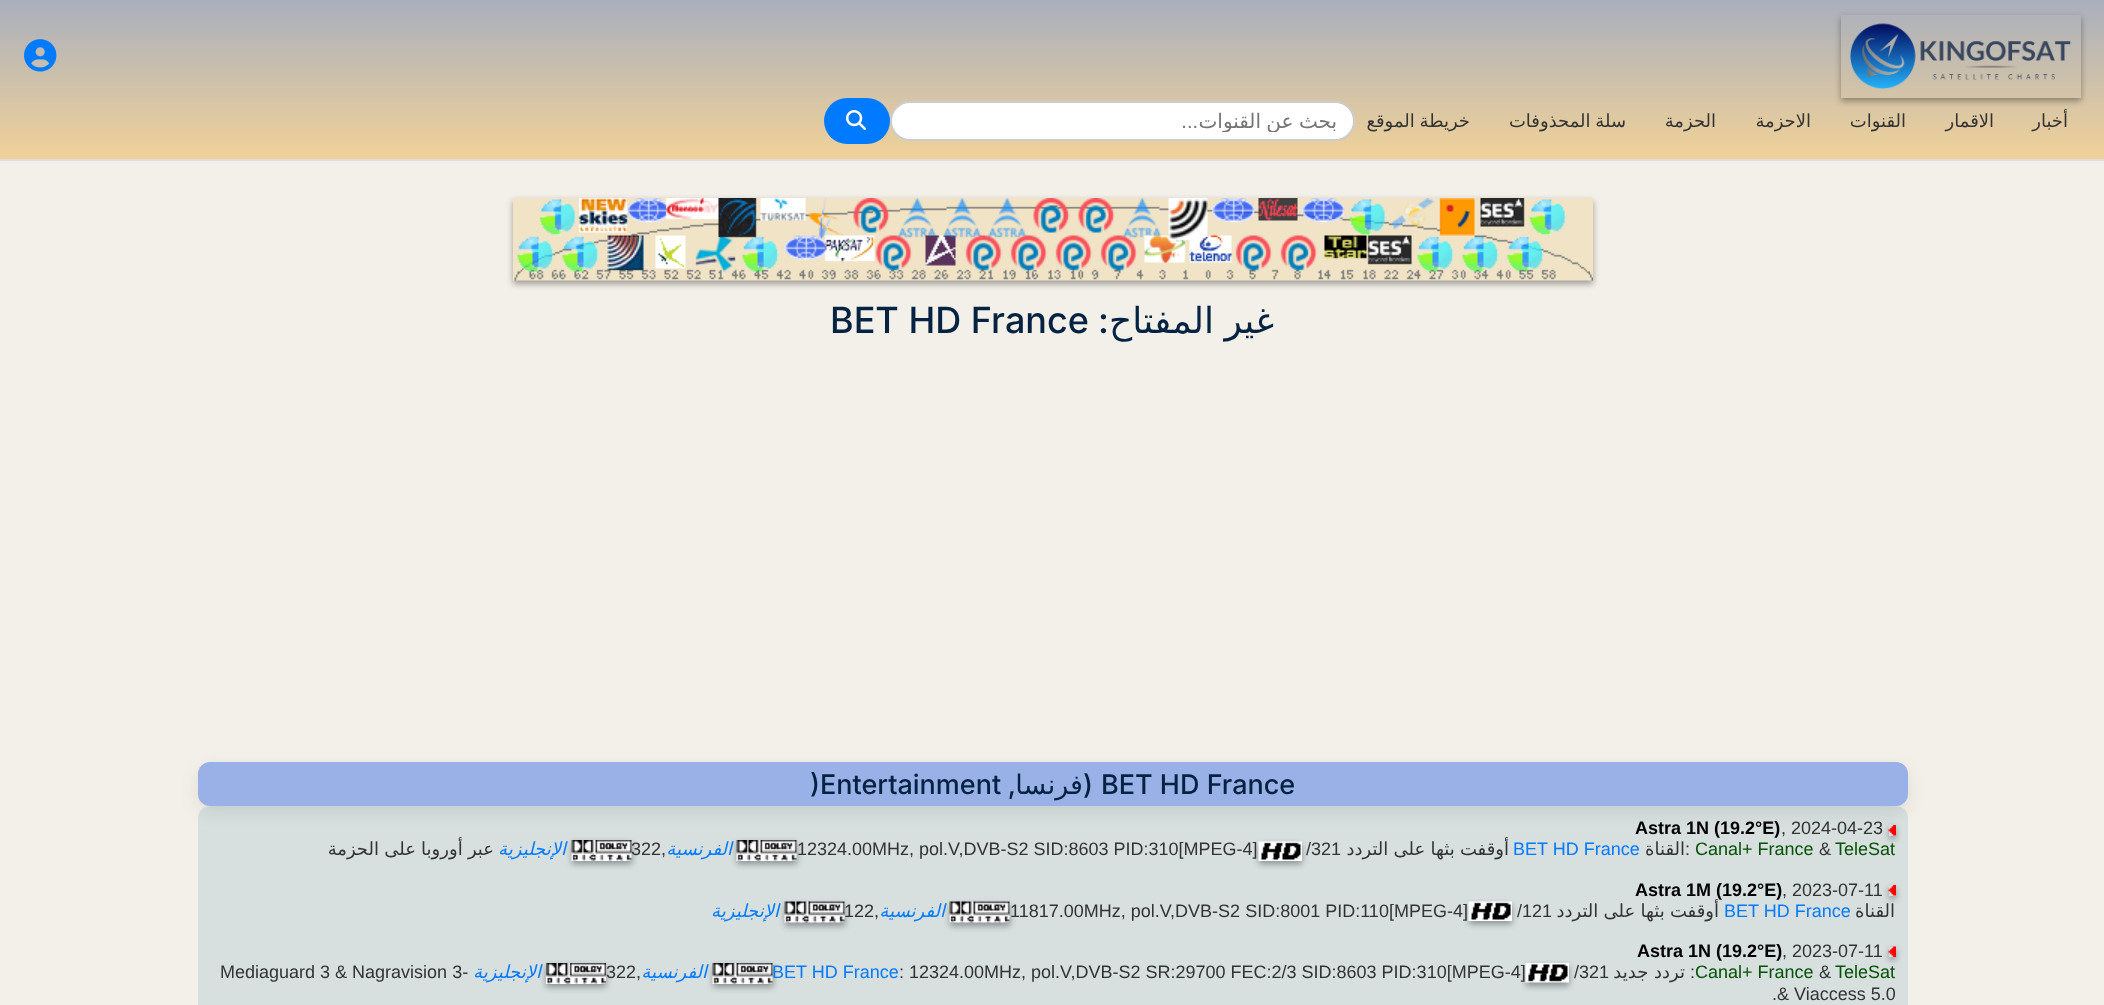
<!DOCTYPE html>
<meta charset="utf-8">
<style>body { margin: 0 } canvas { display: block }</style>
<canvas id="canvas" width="2104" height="1005"></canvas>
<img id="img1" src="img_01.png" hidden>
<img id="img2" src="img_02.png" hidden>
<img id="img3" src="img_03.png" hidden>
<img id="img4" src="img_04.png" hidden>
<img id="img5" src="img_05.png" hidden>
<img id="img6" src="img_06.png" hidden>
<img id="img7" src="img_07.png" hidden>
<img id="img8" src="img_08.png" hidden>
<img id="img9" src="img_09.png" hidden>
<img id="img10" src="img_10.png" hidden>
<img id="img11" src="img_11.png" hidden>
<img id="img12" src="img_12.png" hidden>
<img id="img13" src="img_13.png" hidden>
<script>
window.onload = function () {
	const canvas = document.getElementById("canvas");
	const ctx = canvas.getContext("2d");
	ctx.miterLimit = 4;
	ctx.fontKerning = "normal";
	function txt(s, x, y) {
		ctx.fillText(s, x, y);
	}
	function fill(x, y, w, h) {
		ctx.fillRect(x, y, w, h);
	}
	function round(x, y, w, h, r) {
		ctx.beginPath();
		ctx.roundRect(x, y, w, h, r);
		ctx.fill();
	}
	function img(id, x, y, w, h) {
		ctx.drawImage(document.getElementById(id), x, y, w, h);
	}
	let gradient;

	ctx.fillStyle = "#FFFFFF";
	fill(0, 0, 2104, 1005);
	gradient = ctx.createLinearGradient(1052, 0, 1052, 159);
	gradient.addColorStop(0, "#A9AFBD");
	gradient.addColorStop(1, "#F1D299");
	ctx.fillStyle = gradient;
	fill(0, 0, 2104, 159);
	ctx.fillStyle = "#DDDDDD";
	fill(0, 159, 2104, 2);
	img("img1", 24, 39, 33, 33);
	ctx.save();
	ctx.beginPath();
	ctx.moveTo(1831, 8);
	ctx.lineTo(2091, 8);
	ctx.lineTo(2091, 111);
	ctx.lineTo(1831, 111);
	ctx.closePath();
	ctx.moveTo(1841, 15);
	ctx.lineTo(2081, 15);
	ctx.lineTo(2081, 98);
	ctx.lineTo(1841, 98);
	ctx.closePath();
	ctx.clip("evenodd");
	ctx.fillStyle = "rgba(0, 0, 0, 0.35)";
	ctx.filter = "blur(3px)";
	ctx.beginPath();
	ctx.rect(1841, 18, 240, 83);
	ctx.fill();
	ctx.filter = "none";
	ctx.restore();
	img("img2", 1849, 23, 222, 66);
	ctx.fillStyle = "#007BFF";
	round(824, 98, 66, 46, 23);
	img("img3", 846, 110, 20, 20);
	ctx.fillStyle = "#FFFFFF";
	ctx.beginPath();
	ctx.roundRect(891, 102, 463, 38, 19);
	ctx.fill();
	ctx.strokeStyle = "#CCCCCC";
	ctx.lineWidth = 2;
	ctx.stroke();
	ctx.fillStyle = "#F3F0E9";
	fill(0, 161, 2104, 844);
	ctx.fillStyle = "rgba(0, 0, 0, 0.35)";
	ctx.filter = "blur(3px)";
	ctx.beginPath();
	ctx.rect(513, 201, 1080, 83);
	ctx.fill();
	ctx.filter = "none";
	img("img4", 513, 198, 1080, 83);
	ctx.fillStyle = "#D7DFDF";
	round(198, 806, 1710, 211, 12);
	ctx.save();
	ctx.beginPath();
	ctx.moveTo(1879, 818);
	ctx.lineTo(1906, 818);
	ctx.lineTo(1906, 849);
	ctx.lineTo(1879, 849);
	ctx.closePath();
	ctx.moveTo(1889, 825);
	ctx.lineTo(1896, 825);
	ctx.lineTo(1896, 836);
	ctx.lineTo(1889, 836);
	ctx.closePath();
	ctx.clip("evenodd");
	ctx.fillStyle = "rgba(0, 0, 0, 0.35)";
	ctx.filter = "blur(3px)";
	ctx.beginPath();
	ctx.rect(1889, 828, 7, 11);
	ctx.fill();
	ctx.filter = "none";
	ctx.restore();
	img("img5", 1888, 825, 8, 11);
	ctx.fillStyle = "rgba(0, 0, 0, 0.08)";
	ctx.filter = "blur(9px)";
	ctx.beginPath();
	ctx.roundRect(198, 768, 1710, 44, 12);
	ctx.fill();
	ctx.filter = "none";
	ctx.fillStyle = "#99B1E7";
	round(198, 762, 1710, 44, 12);
	ctx.fillStyle = "rgba(0, 0, 0, 0.35)";
	ctx.filter = "blur(3px)";
	ctx.beginPath();
	ctx.rect(572, 843, 60, 21);
	ctx.fill();
	ctx.filter = "none";
	ctx.filter = "blur(3px)";
	ctx.beginPath();
	ctx.rect(737, 843, 60, 21);
	ctx.fill();
	ctx.filter = "none";
	ctx.filter = "blur(3px)";
	ctx.beginPath();
	ctx.rect(1259, 845, 43, 19);
	ctx.fill();
	ctx.filter = "none";
	img("img6", 571, 840, 61, 21);
	img("img7", 736, 840, 61, 21);
	img("img8", 1258, 841, 44, 20);
	ctx.save();
	ctx.beginPath();
	ctx.moveTo(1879, 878);
	ctx.lineTo(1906, 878);
	ctx.lineTo(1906, 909);
	ctx.lineTo(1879, 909);
	ctx.closePath();
	ctx.moveTo(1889, 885);
	ctx.lineTo(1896, 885);
	ctx.lineTo(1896, 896);
	ctx.lineTo(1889, 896);
	ctx.closePath();
	ctx.clip("evenodd");
	ctx.filter = "blur(3px)";
	ctx.beginPath();
	ctx.rect(1889, 888, 7, 11);
	ctx.fill();
	ctx.filter = "none";
	ctx.restore();
	img("img5", 1888, 885, 8, 11);
	ctx.filter = "blur(3px)";
	ctx.beginPath();
	ctx.rect(785, 905, 60, 21);
	ctx.fill();
	ctx.filter = "none";
	ctx.filter = "blur(3px)";
	ctx.beginPath();
	ctx.rect(950, 905, 60, 21);
	ctx.fill();
	ctx.filter = "none";
	ctx.filter = "blur(3px)";
	ctx.beginPath();
	ctx.rect(1469, 905, 43, 19);
	ctx.fill();
	ctx.filter = "none";
	img("img9", 784, 901, 61, 22);
	img("img9", 949, 901, 61, 22);
	img("img10", 1468, 901, 44, 20);
	ctx.save();
	ctx.beginPath();
	ctx.moveTo(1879, 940);
	ctx.lineTo(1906, 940);
	ctx.lineTo(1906, 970);
	ctx.lineTo(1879, 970);
	ctx.closePath();
	ctx.moveTo(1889, 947);
	ctx.lineTo(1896, 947);
	ctx.lineTo(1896, 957);
	ctx.lineTo(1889, 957);
	ctx.closePath();
	ctx.clip("evenodd");
	ctx.filter = "blur(3px)";
	ctx.beginPath();
	ctx.rect(1889, 950, 7, 10);
	ctx.fill();
	ctx.filter = "none";
	ctx.restore();
	img("img11", 1888, 946, 8, 11);
	ctx.filter = "blur(3px)";
	ctx.beginPath();
	ctx.rect(546, 966, 60, 21);
	ctx.fill();
	ctx.filter = "none";
	ctx.filter = "blur(3px)";
	ctx.beginPath();
	ctx.rect(713, 966, 60, 21);
	ctx.fill();
	ctx.filter = "none";
	ctx.filter = "blur(3px)";
	ctx.beginPath();
	ctx.rect(1526, 966, 43, 20);
	ctx.fill();
	ctx.filter = "none";
	img("img12", 546, 963, 60, 21);
	img("img6", 712, 963, 61, 21);
	img("img13", 1525, 963, 44, 20);
	ctx.direction = "rtl";
	ctx.font = "20px Liberation Sans";
	ctx.fillStyle = "#757575";
	txt("...", 1198, 128);
	ctx.save();
	ctx.beginPath();
	ctx.rect(906, 110, 432, 22);
	ctx.clip();
	ctx.wordSpacing = "-1px";
	ctx.font = "20px DejaVu Sans";
	txt("بحث عن القنوات", 1337, 128);
	ctx.restore();
	ctx.wordSpacing = "-1px";
	ctx.font = "18px DejaVu Sans";
	ctx.fillStyle = "#333333";
	txt("خريطة الموقع", 1470, 127);
	txt("سلة المحذوفات", 1626, 127);
	ctx.wordSpacing = "0px";
	txt("الحزمة", 1716, 127);
	txt("الاحزمة", 1811, 127);
	txt("القنوات", 1906, 127);
	txt("الاقمار", 1994, 127);
	txt("أخبار", 2068, 127);
	ctx.direction = "ltr";
	ctx.font = "500 36px Inter";
	ctx.fillStyle = "#042242";
	txt("BET HD France", 830, 333);
	ctx.direction = "rtl";
	txt(":", 1109, 333);
	ctx.wordSpacing = "-1px";
	ctx.font = "36px DejaVu Sans";
	txt("غير المفتاح", 1274, 333);
	ctx.wordSpacing = "0px";
	ctx.direction = "ltr";
	ctx.font = "500 27px Inter";
	txt(")Entertainment", 810, 794);
	ctx.direction = "rtl";
	txt(",", 1016, 794);
	ctx.font = "27px DejaVu Sans";
	txt("فرنسا", 1083, 794);
	ctx.font = "500 27px Inter";
	txt("(", 1093, 794);
	ctx.direction = "ltr";
	txt("BET HD France", 1101, 794);
	ctx.font = "bold 18px Liberation Sans";
	ctx.fillStyle = "#000000";
	txt("Astra 1N (19.2°E)", 1635, 834);
	ctx.font = "18px Liberation Sans";
	ctx.fillStyle = "#333333";
	txt(", 2024-04-23", 1781, 834);
	ctx.wordSpacing = "-0.5px";
	ctx.direction = "rtl";
	ctx.font = "18px DejaVu Sans";
	txt("عبر أوروبا على الحزمة", 494, 855);
	txt("أوقفت بثها على التردد", 1509, 855);
	ctx.wordSpacing = "0px";
	ctx.font = "italic 18px DejaVu Sans";
	ctx.fillStyle = "#007BFF";
	txt("الإنجليزية", 566, 855);
	ctx.direction = "ltr";
	ctx.font = "18px Liberation Sans";
	ctx.fillStyle = "#333333";
	txt("322,", 631, 855);
	ctx.direction = "rtl";
	ctx.font = "italic 18px DejaVu Sans";
	ctx.fillStyle = "#007BFF";
	txt("الفرنسية", 732, 855);
	ctx.direction = "ltr";
	ctx.font = "18px Liberation Sans";
	ctx.fillStyle = "#333333";
	txt("12324.00MHz, pol.V,DVB-S2 SID:8603 PID:310[MPEG-4]", 797, 855);
	txt("/321", 1306, 855);
	ctx.fillStyle = "#007BFF";
	txt("BET HD France", 1513, 855);
	ctx.direction = "rtl";
	ctx.font = "18px DejaVu Sans";
	ctx.fillStyle = "#333333";
	txt("القناة", 1685, 855);
	ctx.direction = "ltr";
	ctx.font = "18px Liberation Sans";
	txt(":", 1685, 855);
	ctx.fillStyle = "#005200";
	txt("Canal+ France", 1695, 855);
	ctx.fillStyle = "#333333";
	txt("&", 1819, 855);
	ctx.fillStyle = "#005200";
	txt("TeleSat", 1835, 855);
	ctx.font = "bold 18px Liberation Sans";
	ctx.fillStyle = "#000000";
	txt("Astra 1M (19.2°E)", 1635, 896);
	ctx.font = "18px Liberation Sans";
	ctx.fillStyle = "#333333";
	txt(", 2023-07-11", 1782, 896);
	ctx.wordSpacing = "-0.5px";
	ctx.direction = "rtl";
	ctx.font = "18px DejaVu Sans";
	txt("أوقفت بثها على التردد", 1719, 917);
	ctx.wordSpacing = "0px";
	ctx.font = "italic 18px DejaVu Sans";
	ctx.fillStyle = "#007BFF";
	txt("الإنجليزية", 779, 917);
	ctx.direction = "ltr";
	ctx.font = "18px Liberation Sans";
	ctx.fillStyle = "#333333";
	txt("122,", 844, 917);
	ctx.direction = "rtl";
	ctx.font = "italic 18px DejaVu Sans";
	ctx.fillStyle = "#007BFF";
	txt("الفرنسية", 945, 917);
	ctx.direction = "ltr";
	ctx.font = "18px Liberation Sans";
	ctx.fillStyle = "#333333";
	txt("11817.00MHz, pol.V,DVB-S2 SID:8001 PID:110[MPEG-4]", 1010, 917);
	txt("/121", 1517, 917);
	ctx.fillStyle = "#007BFF";
	txt("BET HD France", 1724, 917);
	ctx.direction = "rtl";
	ctx.font = "18px DejaVu Sans";
	ctx.fillStyle = "#333333";
	txt("القناة", 1895, 917);
	ctx.direction = "ltr";
	ctx.font = "bold 18px Liberation Sans";
	ctx.fillStyle = "#000000";
	txt("Astra 1N (19.2°E)", 1637, 957);
	ctx.font = "18px Liberation Sans";
	ctx.fillStyle = "#333333";
	txt(", 2023-07-11", 1782, 957);
	txt("Mediaguard 3 & Nagravision 3-", 220, 978);
	ctx.direction = "rtl";
	ctx.font = "italic 18px DejaVu Sans";
	ctx.fillStyle = "#007BFF";
	txt("الإنجليزية", 541, 978);
	ctx.direction = "ltr";
	ctx.font = "18px Liberation Sans";
	ctx.fillStyle = "#333333";
	txt("322,", 606, 978);
	ctx.direction = "rtl";
	ctx.font = "italic 18px DejaVu Sans";
	ctx.fillStyle = "#007BFF";
	txt("الفرنسية", 707, 978);
	ctx.direction = "ltr";
	ctx.font = "18px Liberation Sans";
	txt("BET HD France", 772, 978);
	ctx.fillStyle = "#333333";
	txt(": 12324.00MHz, pol.V,DVB-S2 SR:29700 FEC:2/3 SID:8603 PID:310[MPEG-4]", 899, 978);
	txt("/321", 1574, 978);
	ctx.direction = "rtl";
	ctx.font = "18px DejaVu Sans";
	txt("تردد جديد", 1685, 978);
	ctx.font = "18px Liberation Sans";
	txt(":", 1695, 978);
	ctx.direction = "ltr";
	ctx.fillStyle = "#005200";
	txt("Canal+ France", 1695, 978);
	ctx.fillStyle = "#333333";
	txt("&", 1819, 978);
	ctx.fillStyle = "#005200";
	txt("TeleSat", 1835, 978);
	ctx.fillStyle = "#333333";
	txt(".& Viaccess 5.0", 1772, 1000);
};
</script>
